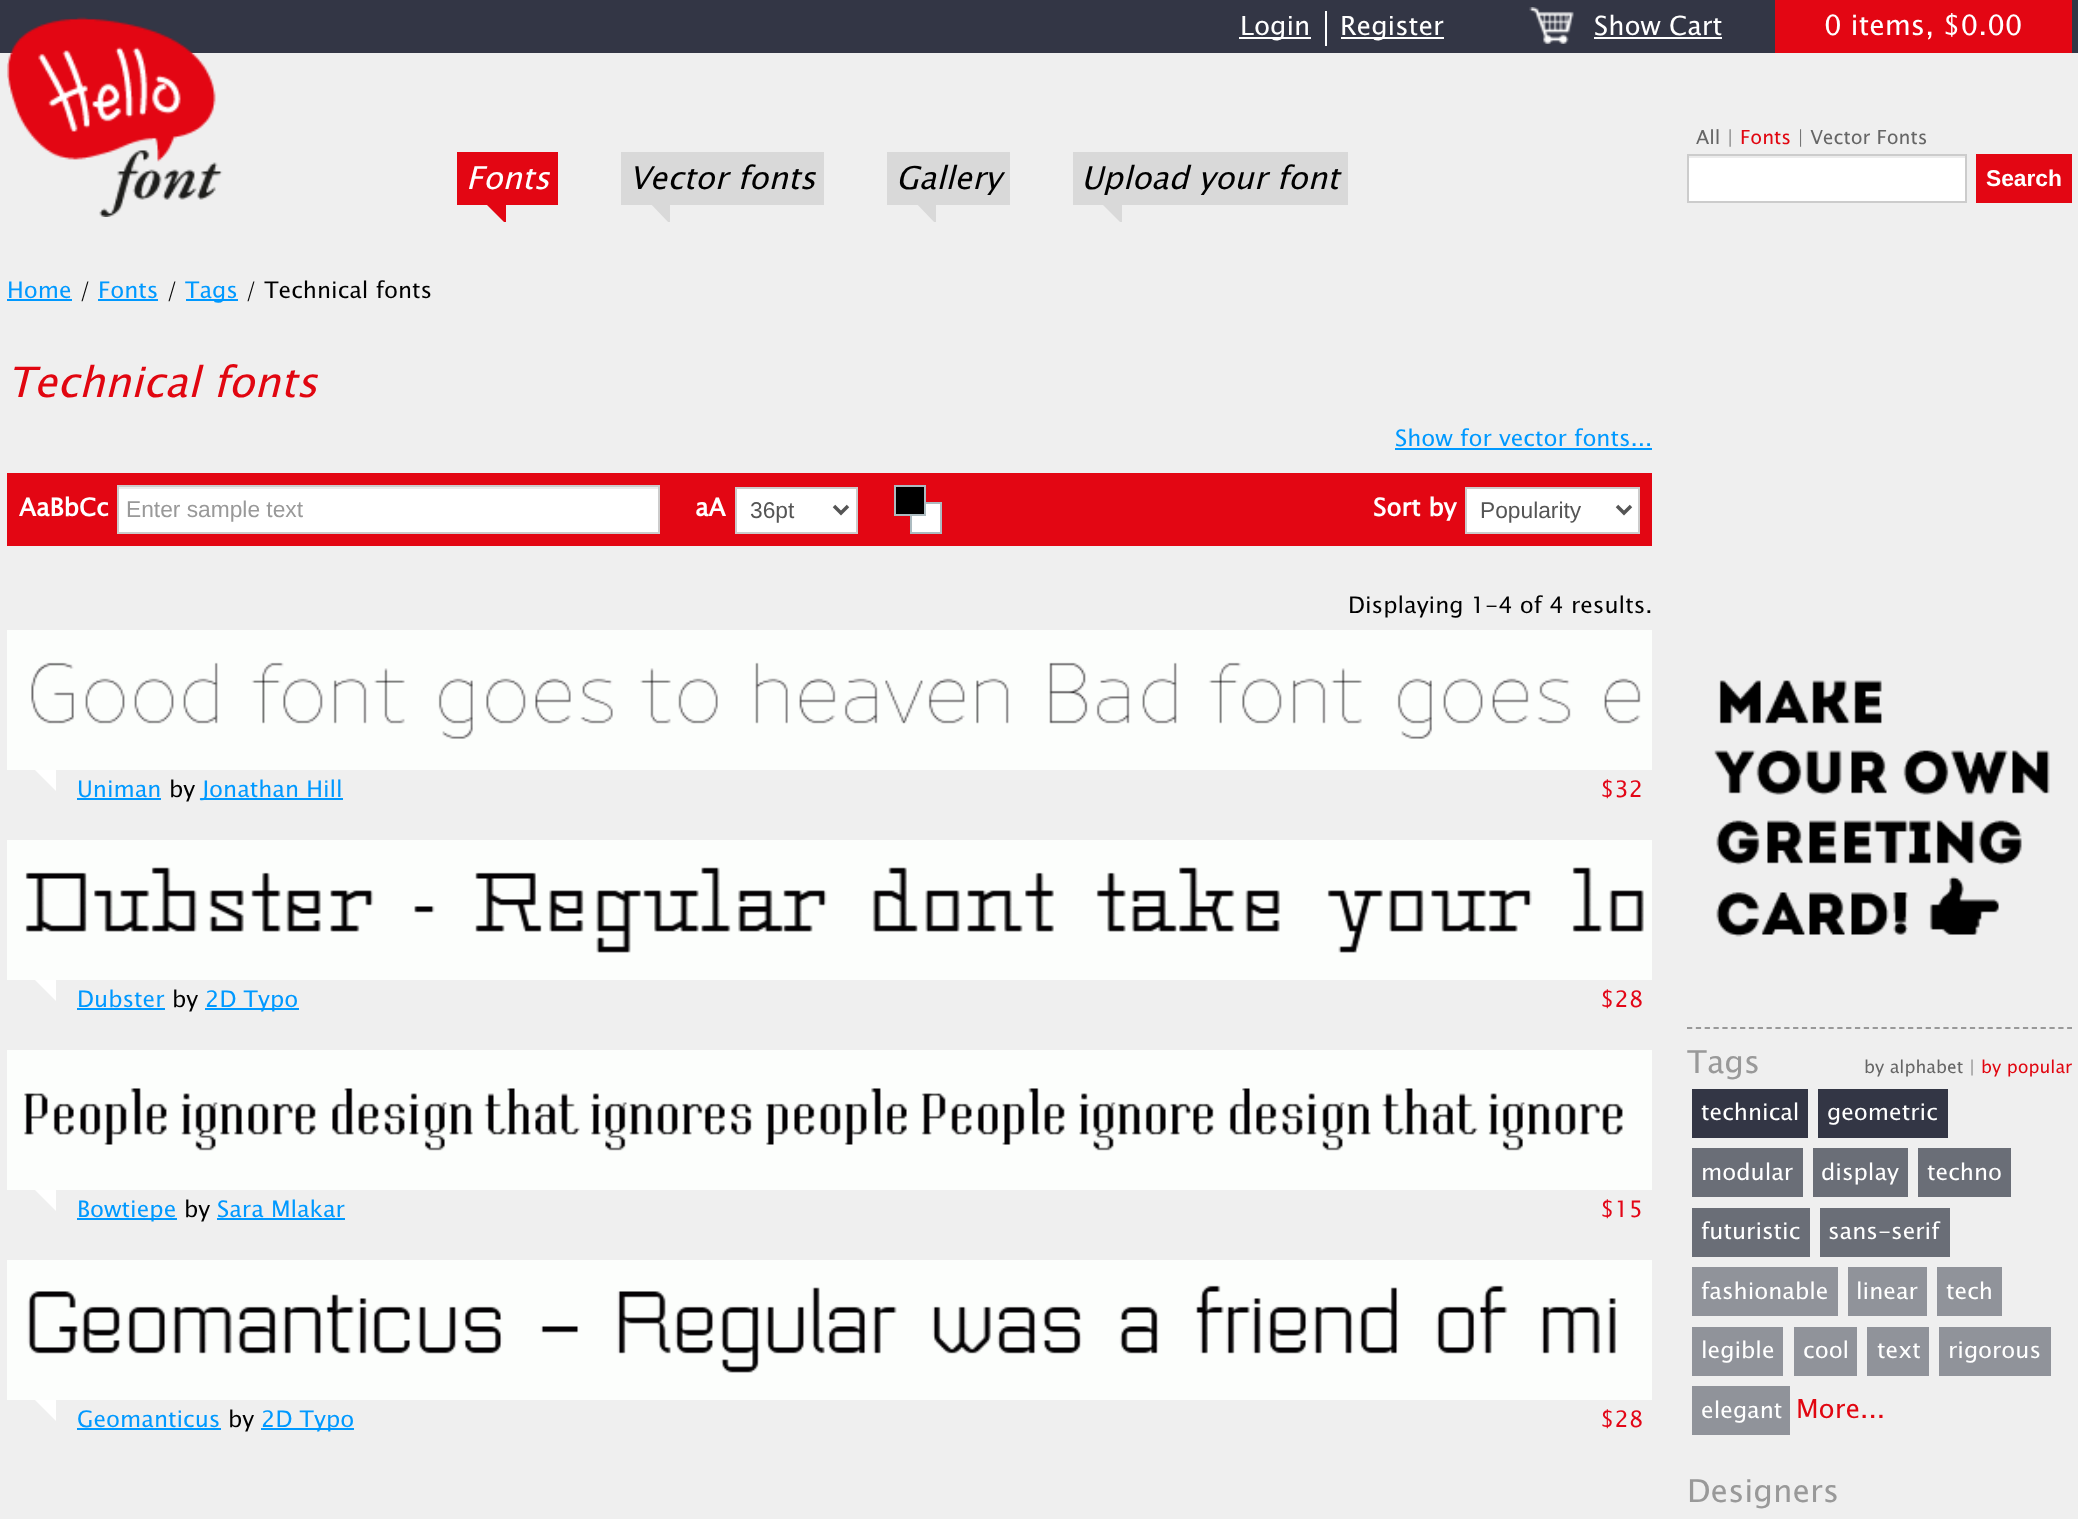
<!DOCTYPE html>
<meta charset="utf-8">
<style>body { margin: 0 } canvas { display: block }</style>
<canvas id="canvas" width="2078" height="1519"></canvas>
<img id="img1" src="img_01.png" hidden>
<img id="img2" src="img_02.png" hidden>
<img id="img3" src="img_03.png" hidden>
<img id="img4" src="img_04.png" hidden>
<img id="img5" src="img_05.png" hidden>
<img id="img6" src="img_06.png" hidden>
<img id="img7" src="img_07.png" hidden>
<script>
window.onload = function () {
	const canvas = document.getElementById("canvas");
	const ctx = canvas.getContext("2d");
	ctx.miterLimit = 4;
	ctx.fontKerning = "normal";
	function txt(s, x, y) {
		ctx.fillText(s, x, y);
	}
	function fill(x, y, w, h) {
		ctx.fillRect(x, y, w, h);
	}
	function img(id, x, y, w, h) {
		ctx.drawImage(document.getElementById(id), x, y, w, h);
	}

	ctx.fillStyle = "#EFEFEF";
	fill(0, 0, 2078, 1519);
	ctx.fillStyle = "#333645";
	fill(0, 0, 2078, 53);
	img("img1", 7, 17, 216, 200);
	ctx.fillStyle = "#FFFFFF";
	fill(1325, 11, 2, 35);
	fill(1239, 37, 72, 2);
	fill(1341, 37, 103, 2);
	img("img2", 1529, 7, 45, 37);
	fill(1594, 37, 128, 2);
	ctx.fillStyle = "#E30613";
	fill(1775, 0, 297, 53);
	fill(457, 152, 101, 53);
	ctx.save();
	ctx.beginPath();
	ctx.rect(317, 53, 1755, 169);
	ctx.clip();
	ctx.beginPath();
	ctx.moveTo(506, 178);
	ctx.lineTo(506, 224);
	ctx.lineTo(483, 201);
	ctx.closePath();
	ctx.fill();
	ctx.restore();
	ctx.fillStyle = "#D9D9D9";
	fill(621, 152, 203, 53);
	ctx.save();
	ctx.beginPath();
	ctx.rect(317, 53, 1755, 169);
	ctx.clip();
	ctx.beginPath();
	ctx.moveTo(670, 178);
	ctx.lineTo(670, 224);
	ctx.lineTo(648, 201);
	ctx.closePath();
	ctx.fill();
	ctx.restore();
	fill(887, 152, 123, 53);
	ctx.save();
	ctx.beginPath();
	ctx.rect(317, 53, 1755, 169);
	ctx.clip();
	ctx.beginPath();
	ctx.moveTo(936, 178);
	ctx.lineTo(936, 224);
	ctx.lineTo(914, 201);
	ctx.closePath();
	ctx.fill();
	ctx.restore();
	fill(1073, 152, 275, 53);
	ctx.save();
	ctx.beginPath();
	ctx.rect(317, 53, 1755, 169);
	ctx.clip();
	ctx.beginPath();
	ctx.moveTo(1122, 178);
	ctx.lineTo(1122, 224);
	ctx.lineTo(1099, 201);
	ctx.closePath();
	ctx.fill();
	ctx.restore();
	ctx.fillStyle = "#FFFFFF";
	fill(1689, 158, 276, 43);
	ctx.fillStyle = "#ECECEC";
	fill(1689, 156, 276, 2);
	ctx.strokeStyle = "#CCCCCC";
	ctx.lineWidth = 2;
	ctx.strokeRect(1688, 155, 278, 47);
	ctx.fillStyle = "#E30613";
	fill(1976, 154, 96, 49);
	ctx.fillStyle = "#0099FF";
	fill(7, 299, 65, 2);
	fill(98, 299, 60, 2);
	fill(186, 299, 52, 2);
	fill(1395, 448, 257, 2);
	ctx.fillStyle = "#E30613";
	fill(7, 473, 1645, 73);
	ctx.fillStyle = "#FFFFFF";
	fill(119, 489, 539, 43);
	ctx.fillStyle = "#ECECEC";
	fill(119, 487, 539, 2);
	ctx.strokeRect(118, 486, 541, 47);
	ctx.fillStyle = "#FFFFFF";
	ctx.beginPath();
	ctx.rect(736, 488, 121, 45);
	ctx.fill();
	ctx.stroke();
	ctx.beginPath();
	ctx.moveTo(834, 506);
	ctx.lineTo(841, 513);
	ctx.lineTo(848, 506);
	ctx.strokeStyle = "#555555";
	ctx.lineWidth = 3.5;
	ctx.stroke();
	ctx.beginPath();
	ctx.rect(911, 503, 30, 30);
	ctx.fill();
	ctx.strokeStyle = "#ACBBC0";
	ctx.lineWidth = 2;
	ctx.stroke();
	ctx.fillStyle = "#000000";
	ctx.beginPath();
	ctx.rect(895, 486, 30, 29);
	ctx.fill();
	ctx.stroke();
	ctx.fillStyle = "#FFFFFF";
	ctx.beginPath();
	ctx.rect(1466, 488, 173, 45);
	ctx.fill();
	ctx.strokeStyle = "#CCCCCC";
	ctx.stroke();
	ctx.beginPath();
	ctx.moveTo(1617, 506);
	ctx.lineTo(1624, 513);
	ctx.lineTo(1631, 506);
	ctx.strokeStyle = "#555555";
	ctx.lineWidth = 3.5;
	ctx.stroke();
	ctx.beginPath();
	ctx.moveTo(56, 746);
	ctx.lineTo(56, 791);
	ctx.lineTo(33, 768);
	ctx.closePath();
	ctx.fill();
	img("img3", 7, 630, 1645, 140);
	ctx.fillStyle = "#0099FF";
	fill(77, 798, 84, 2);
	fill(201, 798, 142, 2);
	ctx.fillStyle = "#FFFFFF";
	ctx.beginPath();
	ctx.moveTo(56, 956);
	ctx.lineTo(56, 1001);
	ctx.lineTo(33, 978);
	ctx.closePath();
	ctx.fill();
	img("img4", 7, 840, 1645, 140);
	ctx.fillStyle = "#0099FF";
	fill(77, 1008, 88, 2);
	fill(205, 1008, 94, 2);
	ctx.fillStyle = "#FFFFFF";
	ctx.beginPath();
	ctx.moveTo(56, 1166);
	ctx.lineTo(56, 1211);
	ctx.lineTo(33, 1188);
	ctx.closePath();
	ctx.fill();
	img("img5", 7, 1050, 1645, 140);
	ctx.fillStyle = "#0099FF";
	fill(77, 1218, 100, 2);
	fill(217, 1218, 128, 2);
	ctx.fillStyle = "#FFFFFF";
	ctx.beginPath();
	ctx.moveTo(56, 1376);
	ctx.lineTo(56, 1421);
	ctx.lineTo(33, 1398);
	ctx.closePath();
	ctx.fill();
	img("img6", 7, 1260, 1645, 140);
	ctx.fillStyle = "#0099FF";
	fill(77, 1428, 144, 2);
	fill(261, 1428, 93, 2);
	img("img7", 1714, 680, 336, 257);
	ctx.beginPath();
	ctx.moveTo(1687, 1028);
	ctx.lineTo(2072, 1028);
	ctx.strokeStyle = "#999999";
	ctx.lineWidth = 1.8;
	ctx.setLineDash([5.25, 3.59]);
	ctx.stroke();
	ctx.fillStyle = "#333645";
	fill(1692, 1089, 116, 49);
	fill(1818, 1089, 130, 49);
	ctx.fillStyle = "#6A6E77";
	fill(1692, 1148, 111, 49);
	fill(1813, 1148, 95, 49);
	fill(1918, 1148, 93, 49);
	fill(1692, 1208, 118, 49);
	fill(1820, 1208, 130, 49);
	ctx.fillStyle = "#90939A";
	fill(1692, 1267, 146, 49);
	fill(1848, 1267, 79, 49);
	fill(1937, 1267, 65, 49);
	fill(1692, 1327, 91, 49);
	fill(1794, 1327, 63, 49);
	fill(1867, 1327, 62, 49);
	fill(1939, 1327, 112, 49);
	fill(1692, 1386, 98, 49);
	ctx.font = "26.25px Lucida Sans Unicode";
	ctx.fillStyle = "#FFFFFF";
	txt("Login", 1240, 35);
	txt("Register", 1340, 35);
	txt("Show Cart", 1594, 35);
	ctx.font = "28px Lucida Sans Unicode";
	txt("0 items, $0.00", 1824, 35);
	ctx.font = "italic 31.5px Lucida Sans Unicode";
	txt("Fonts", 466, 189);
	ctx.fillStyle = "#000000";
	txt("Vector fonts", 629, 189);
	txt("Gallery", 896, 189);
	txt("Upload your font", 1081, 189);
	ctx.font = "19.25px Lucida Sans Unicode";
	ctx.fillStyle = "#666666";
	txt("All |", 1696, 144);
	ctx.fillStyle = "#E10610";
	txt("Fonts", 1740, 144);
	ctx.fillStyle = "#666666";
	txt("| Vector Fonts", 1797, 144);
	ctx.font = "bold 22.75px Liberation Sans";
	ctx.fillStyle = "#FFFFFF";
	txt("Search", 1986, 186);
	ctx.font = "22.75px Lucida Sans Unicode";
	ctx.fillStyle = "#0099FF";
	txt("Home", 7, 298);
	ctx.fillStyle = "#000000";
	txt("/", 79, 298);
	ctx.fillStyle = "#0099FF";
	txt("Fonts", 98, 298);
	ctx.fillStyle = "#000000";
	txt("/", 166, 298);
	ctx.fillStyle = "#0099FF";
	txt("Tags", 185, 298);
	ctx.fillStyle = "#000000";
	txt("/ Technical fonts", 245, 298);
	ctx.font = "italic 42px Lucida Sans Unicode";
	ctx.fillStyle = "#E10610";
	txt("Technical fonts", 7, 397);
	ctx.font = "22.75px Lucida Sans Unicode";
	ctx.fillStyle = "#0099FF";
	txt("Show for vector fonts...", 1395, 446);
	ctx.font = "bold 24.5px Lucida Sans Unicode";
	ctx.fillStyle = "#FFFFFF";
	txt("AaBbCc", 19, 516);
	ctx.font = "22.75px Liberation Sans";
	ctx.fillStyle = "#999999";
	txt("Enter sample text", 126, 517);
	ctx.font = "bold 24.5px Lucida Sans Unicode";
	ctx.fillStyle = "#FFFFFF";
	txt("aA", 695, 516);
	ctx.font = "22.75px Liberation Sans";
	ctx.fillStyle = "#555555";
	txt("36pt", 750, 518);
	ctx.font = "bold 24.5px Lucida Sans Unicode";
	ctx.fillStyle = "#FFFFFF";
	txt("Sort by", 1373, 516);
	ctx.font = "22.75px Liberation Sans";
	ctx.fillStyle = "#555555";
	txt("Popularity", 1480, 518);
	ctx.font = "22.75px Lucida Sans Unicode";
	ctx.fillStyle = "#000000";
	txt("Displaying 1-4 of 4 results.", 1348, 613);
	ctx.fillStyle = "#0099FF";
	txt("Uniman", 77, 797);
	ctx.fillStyle = "#000000";
	txt("by", 169, 797);
	ctx.fillStyle = "#0099FF";
	txt("Jonathan Hill", 202, 797);
	ctx.fillStyle = "#E30617";
	txt("$32", 1600, 797);
	ctx.fillStyle = "#0099FF";
	txt("Dubster", 77, 1007);
	ctx.fillStyle = "#000000";
	txt("by", 172, 1007);
	ctx.fillStyle = "#0099FF";
	txt("2D Typo", 205, 1007);
	ctx.fillStyle = "#E30617";
	txt("$28", 1600, 1007);
	ctx.fillStyle = "#0099FF";
	txt("Bowtiepe", 77, 1217);
	ctx.fillStyle = "#000000";
	txt("by", 184, 1217);
	ctx.fillStyle = "#0099FF";
	txt("Sara Mlakar", 217, 1217);
	ctx.fillStyle = "#E30617";
	txt("$15", 1600, 1217);
	ctx.fillStyle = "#0099FF";
	txt("Geomanticus", 77, 1427);
	ctx.fillStyle = "#000000";
	txt("by", 228, 1427);
	ctx.fillStyle = "#0099FF";
	txt("2D Typo", 261, 1427);
	ctx.fillStyle = "#E30617";
	txt("$28", 1600, 1427);
	ctx.font = "31.5px Lucida Sans Unicode";
	ctx.fillStyle = "#999999";
	txt("Tags", 1687, 1073);
	ctx.font = "17.5px Lucida Sans Unicode";
	ctx.fillStyle = "#666666";
	txt("by alphabet |", 1864, 1073);
	ctx.fillStyle = "#E10610";
	txt("by popular", 1981, 1073);
	ctx.font = "22.75px Lucida Sans Unicode";
	ctx.fillStyle = "#FFFFFF";
	txt("technical", 1701, 1120);
	txt("geometric", 1827, 1120);
	txt("modular", 1701, 1180);
	txt("display", 1821, 1180);
	txt("techno", 1927, 1180);
	txt("futuristic", 1701, 1239);
	txt("sans-serif", 1828, 1239);
	txt("fashionable", 1701, 1299);
	txt("linear", 1856, 1299);
	txt("tech", 1946, 1299);
	txt("legible", 1701, 1358);
	txt("cool", 1803, 1358);
	txt("text", 1877, 1358);
	txt("rigorous", 1948, 1358);
	txt("elegant", 1701, 1418);
	ctx.font = "26.25px Lucida Sans Unicode";
	ctx.fillStyle = "#E10610";
	txt("More...", 1796, 1418);
	ctx.font = "31.5px Lucida Sans Unicode";
	ctx.fillStyle = "#999999";
	txt("Designers", 1687, 1502);
};
</script>
